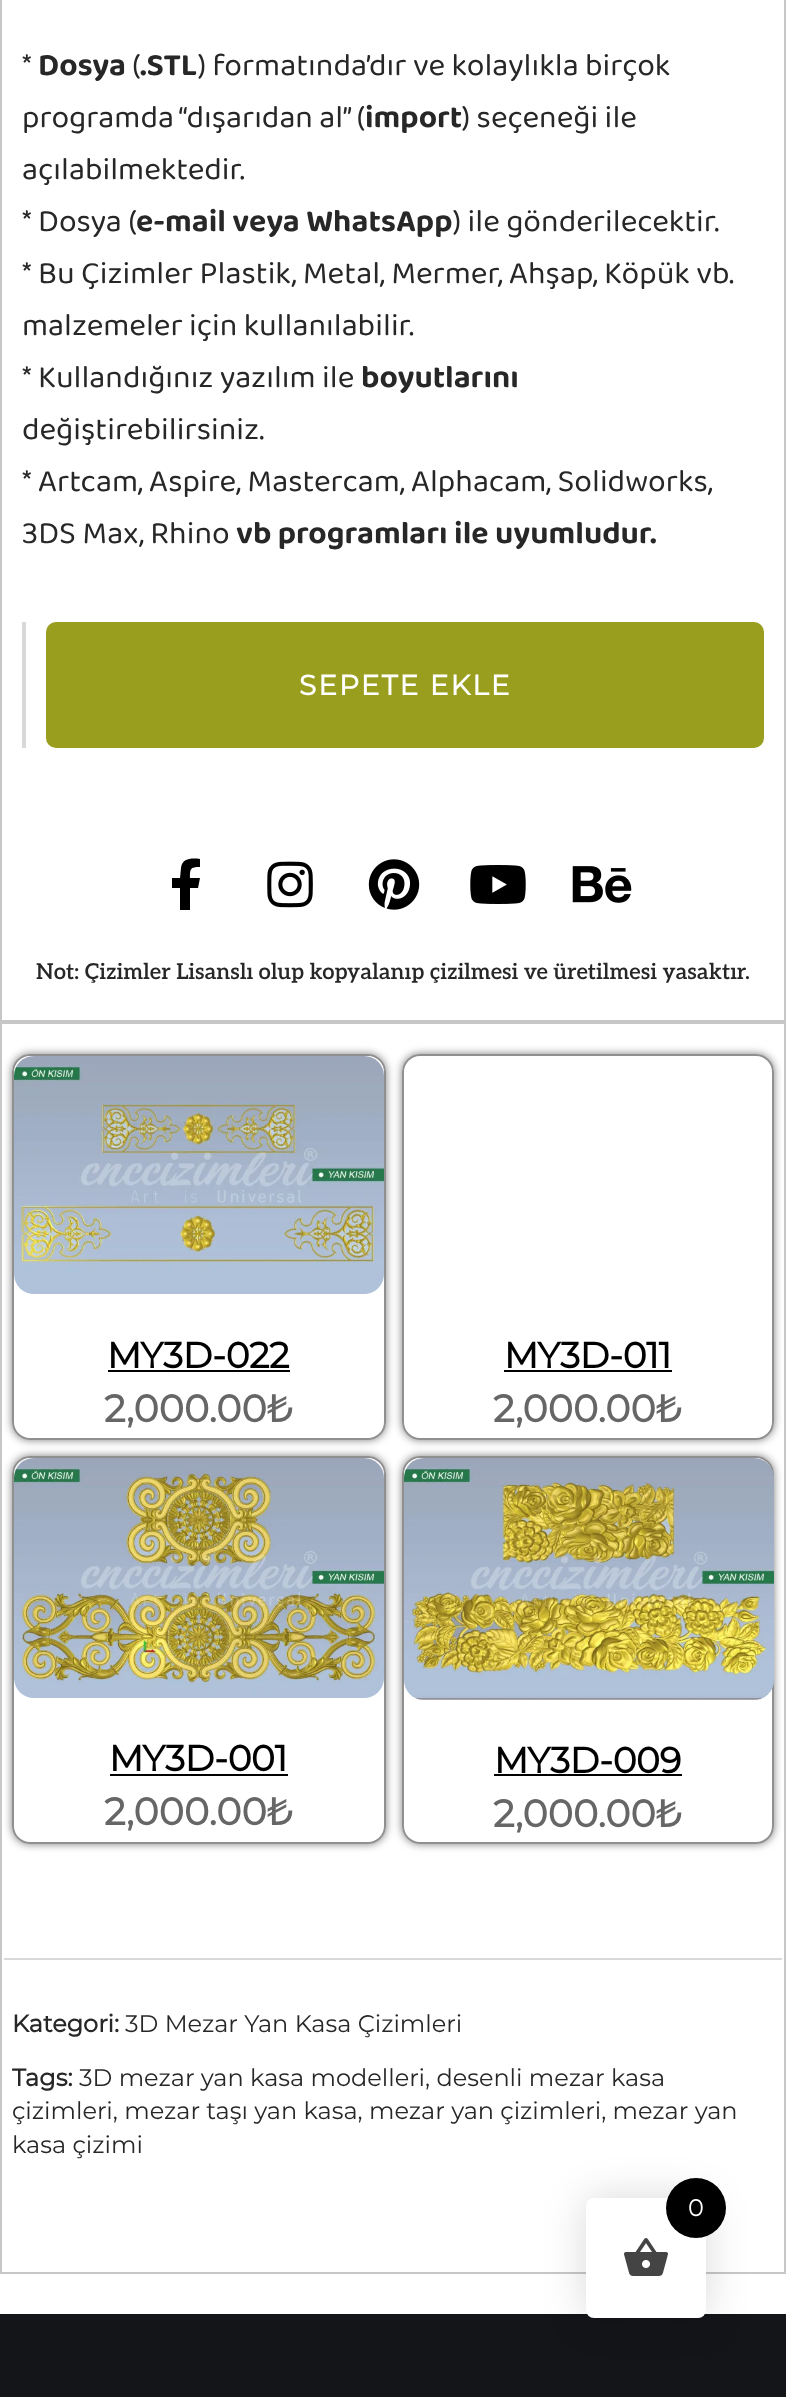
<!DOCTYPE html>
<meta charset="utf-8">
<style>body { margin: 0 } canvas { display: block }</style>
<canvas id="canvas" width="786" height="2397"></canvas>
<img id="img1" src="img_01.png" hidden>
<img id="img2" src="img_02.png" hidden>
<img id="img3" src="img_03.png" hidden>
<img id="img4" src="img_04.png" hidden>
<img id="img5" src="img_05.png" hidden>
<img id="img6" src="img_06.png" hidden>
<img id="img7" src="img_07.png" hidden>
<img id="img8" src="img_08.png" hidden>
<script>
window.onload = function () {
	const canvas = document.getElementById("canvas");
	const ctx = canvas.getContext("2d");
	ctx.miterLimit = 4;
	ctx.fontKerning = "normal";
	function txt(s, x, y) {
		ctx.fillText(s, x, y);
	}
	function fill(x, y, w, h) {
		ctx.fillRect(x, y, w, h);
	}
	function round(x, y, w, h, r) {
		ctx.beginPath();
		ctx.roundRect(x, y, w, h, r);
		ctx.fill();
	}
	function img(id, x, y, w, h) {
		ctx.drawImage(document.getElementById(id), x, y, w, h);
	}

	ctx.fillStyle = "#FFFFFF";
	fill(0, 0, 786, 2397);
	ctx.strokeStyle = "#C7C7C7";
	ctx.lineWidth = 2;
	ctx.strokeRect(1, -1, 784, 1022);
	ctx.fillStyle = "#D9D9D9";
	fill(22, 622, 4, 126);
	ctx.fillStyle = "#9A9E1F";
	round(46, 622, 718, 126, 10);
	ctx.fillStyle = "#000000";
	ctx.beginPath();
	ctx.moveTo(198, 888);
	ctx.lineTo(190, 888);
	ctx.lineTo(190, 910);
	ctx.lineTo(180, 910);
	ctx.lineTo(180, 888);
	ctx.lineTo(172, 888);
	ctx.lineTo(172, 878);
	ctx.lineTo(180, 878);
	ctx.lineTo(181, 868);
	ctx.bezierCurveTo(182, 858, 192, 858, 200, 859);
	ctx.lineTo(200, 867);
	ctx.bezierCurveTo(190, 867, 190, 869, 190, 878);
	ctx.lineTo(200, 878);
	ctx.closePath();
	ctx.fill();
	img("img1", 267, 861, 46, 47);
	img("img2", 368, 859, 52, 51);
	img("img3", 470, 865, 56, 39);
	img("img4", 572, 866, 60, 37);
	ctx.strokeRect(1, 1023, 784, 1250);
	ctx.save();
	ctx.beginPath();
	ctx.moveTo(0, 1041);
	ctx.lineTo(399, 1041);
	ctx.lineTo(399, 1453);
	ctx.lineTo(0, 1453);
	ctx.closePath();
	ctx.moveTo(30, 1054);
	ctx.lineTo(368, 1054);
	ctx.bezierCurveTo(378, 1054, 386, 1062, 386, 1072);
	ctx.lineTo(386, 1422);
	ctx.bezierCurveTo(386, 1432, 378, 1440, 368, 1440);
	ctx.lineTo(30, 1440);
	ctx.bezierCurveTo(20, 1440, 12, 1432, 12, 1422);
	ctx.lineTo(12, 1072);
	ctx.bezierCurveTo(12, 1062, 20, 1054, 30, 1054);
	ctx.closePath();
	ctx.clip("evenodd");
	ctx.fillStyle = "rgba(0, 0, 0, 0.5)";
	ctx.filter = "blur(4px)";
	ctx.beginPath();
	ctx.roundRect(12, 1054, 374, 386, 18);
	ctx.fill();
	ctx.filter = "none";
	ctx.restore();
	ctx.beginPath();
	ctx.roundRect(13, 1055, 372, 384, 17);
	ctx.strokeStyle = "#909090";
	ctx.stroke();
	img("img5", 14, 1056, 370, 238);
	fill(108, 1370, 182, 2);
	ctx.save();
	ctx.beginPath();
	ctx.moveTo(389, 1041);
	ctx.lineTo(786, 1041);
	ctx.lineTo(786, 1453);
	ctx.lineTo(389, 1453);
	ctx.closePath();
	ctx.moveTo(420, 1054);
	ctx.lineTo(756, 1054);
	ctx.bezierCurveTo(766, 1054, 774, 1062, 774, 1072);
	ctx.lineTo(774, 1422);
	ctx.bezierCurveTo(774, 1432, 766, 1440, 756, 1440);
	ctx.lineTo(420, 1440);
	ctx.bezierCurveTo(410, 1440, 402, 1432, 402, 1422);
	ctx.lineTo(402, 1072);
	ctx.bezierCurveTo(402, 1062, 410, 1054, 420, 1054);
	ctx.closePath();
	ctx.clip("evenodd");
	ctx.fillStyle = "rgba(0, 0, 0, 0.5)";
	ctx.filter = "blur(4px)";
	ctx.beginPath();
	ctx.roundRect(402, 1054, 372, 386, 18);
	ctx.fill();
	ctx.filter = "none";
	ctx.restore();
	ctx.beginPath();
	ctx.roundRect(403, 1055, 370, 384, 17);
	ctx.stroke();
	fill(504, 1370, 168, 2);
	ctx.save();
	ctx.beginPath();
	ctx.moveTo(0, 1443);
	ctx.lineTo(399, 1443);
	ctx.lineTo(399, 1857);
	ctx.lineTo(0, 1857);
	ctx.closePath();
	ctx.moveTo(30, 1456);
	ctx.lineTo(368, 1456);
	ctx.bezierCurveTo(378, 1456, 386, 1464, 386, 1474);
	ctx.lineTo(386, 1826);
	ctx.bezierCurveTo(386, 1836, 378, 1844, 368, 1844);
	ctx.lineTo(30, 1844);
	ctx.bezierCurveTo(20, 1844, 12, 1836, 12, 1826);
	ctx.lineTo(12, 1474);
	ctx.bezierCurveTo(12, 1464, 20, 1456, 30, 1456);
	ctx.closePath();
	ctx.clip("evenodd");
	ctx.fillStyle = "rgba(0, 0, 0, 0.5)";
	ctx.filter = "blur(4px)";
	ctx.beginPath();
	ctx.roundRect(12, 1456, 374, 388, 18);
	ctx.fill();
	ctx.filter = "none";
	ctx.restore();
	ctx.beginPath();
	ctx.roundRect(13, 1457, 372, 386, 17);
	ctx.stroke();
	img("img6", 14, 1458, 370, 240);
	fill(110, 1774, 178, 2);
	ctx.save();
	ctx.beginPath();
	ctx.moveTo(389, 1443);
	ctx.lineTo(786, 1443);
	ctx.lineTo(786, 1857);
	ctx.lineTo(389, 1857);
	ctx.closePath();
	ctx.moveTo(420, 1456);
	ctx.lineTo(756, 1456);
	ctx.bezierCurveTo(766, 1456, 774, 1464, 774, 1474);
	ctx.lineTo(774, 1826);
	ctx.bezierCurveTo(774, 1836, 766, 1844, 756, 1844);
	ctx.lineTo(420, 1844);
	ctx.bezierCurveTo(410, 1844, 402, 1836, 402, 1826);
	ctx.lineTo(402, 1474);
	ctx.bezierCurveTo(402, 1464, 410, 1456, 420, 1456);
	ctx.closePath();
	ctx.clip("evenodd");
	ctx.fillStyle = "rgba(0, 0, 0, 0.5)";
	ctx.filter = "blur(4px)";
	ctx.beginPath();
	ctx.roundRect(402, 1456, 372, 388, 18);
	ctx.fill();
	ctx.filter = "none";
	ctx.restore();
	ctx.beginPath();
	ctx.roundRect(403, 1457, 370, 386, 17);
	ctx.stroke();
	img("img7", 404, 1458, 370, 242);
	fill(494, 1774, 188, 2);
	ctx.fillStyle = "#D9D9D9";
	fill(4, 1958, 778, 2);
	ctx.fillStyle = "#141519";
	fill(0, 2314, 786, 83);
	ctx.fillStyle = "rgba(0, 0, 0, 0.15)";
	ctx.filter = "blur(20px)";
	ctx.beginPath();
	ctx.roundRect(586, 2198, 120, 120, 8);
	ctx.fill();
	ctx.filter = "none";
	ctx.fillStyle = "#FFFFFF";
	round(586, 2198, 120, 120, 8);
	ctx.fillStyle = "#000000";
	ctx.beginPath();
	ctx.arc(696, 2208, 30, 0, Math.PI * 2);
	ctx.fill();
	img("img8", 624, 2238, 44, 38);
	ctx.font = "32px 'Baloo Tammudu 2'";
	ctx.fillStyle = "#272727";
	txt("*", 22, 75);
	ctx.font = "bold 32px 'Baloo Tammudu 2'";
	txt("Dosya", 38, 75);
	ctx.font = "32px 'Baloo Tammudu 2'";
	txt("(", 132, 75);
	ctx.font = "bold 32px 'Baloo Tammudu 2'";
	txt(".STL", 140, 75);
	ctx.font = "32px 'Baloo Tammudu 2'";
	txt(") formatında’dır ve kolaylıkla birçok", 198, 75);
	txt("programda “dışarıdan al” (", 22, 127);
	ctx.font = "bold 32px 'Baloo Tammudu 2'";
	txt("import", 365, 127);
	ctx.font = "32px 'Baloo Tammudu 2'";
	txt(") seçeneği ile", 462, 127);
	txt("açılabilmektedir.", 22, 179);
	txt("* Dosya (", 22, 231);
	ctx.font = "bold 32px 'Baloo Tammudu 2'";
	txt("e-mail veya WhatsApp", 136, 231);
	ctx.font = "32px 'Baloo Tammudu 2'";
	txt(") ile gönderilecektir.", 453, 231);
	txt("* Bu Çizimler Plastik, Metal, Mermer, Ahşap, Köpük vb.", 22, 283);
	txt("malzemeler için kullanılabilir.", 22, 335);
	txt("* Kullandığınız yazılım ile", 22, 387);
	ctx.font = "bold 32px 'Baloo Tammudu 2'";
	txt("boyutlarını", 361, 387);
	ctx.font = "32px 'Baloo Tammudu 2'";
	txt("değiştirebilirsiniz.", 22, 439);
	txt("* Artcam, Aspire, Mastercam, Alphacam, Solidworks,", 22, 491);
	txt("3DS Max, Rhino", 22, 543);
	ctx.font = "bold 32px 'Baloo Tammudu 2'";
	txt("vb programları ile uyumludur.", 236, 543);
	ctx.letterSpacing = "2px";
	ctx.font = "bold 28px Montserrat";
	ctx.fillStyle = "#FFFFFF";
	txt("SEPETE EKLE", 299, 695);
	ctx.letterSpacing = "0px";
	ctx.font = "600 22px Aleo";
	ctx.fillStyle = "#272727";
	txt("Not: Çizimler Lisanslı olup kopyalanıp çizilmesi ve üretilmesi yasaktır.", 36, 979);
	ctx.letterSpacing = "-0.5px";
	ctx.font = "bold 36px Montserrat";
	ctx.fillStyle = "#000000";
	txt("MY3D-022", 107, 1368);
	ctx.letterSpacing = "0px";
	ctx.font = "bold 38px Montserrat";
	ctx.fillStyle = "#666666";
	txt("2,000.00₺", 104, 1422);
	ctx.letterSpacing = "-0.5px";
	ctx.font = "bold 36px Montserrat";
	ctx.fillStyle = "#000000";
	txt("MY3D-011", 504, 1368);
	ctx.letterSpacing = "0px";
	ctx.font = "bold 38px Montserrat";
	ctx.fillStyle = "#666666";
	txt("2,000.00₺", 493, 1422);
	ctx.letterSpacing = "-0.5px";
	ctx.font = "bold 36px Montserrat";
	ctx.fillStyle = "#000000";
	txt("MY3D-001", 109, 1771);
	ctx.letterSpacing = "0px";
	ctx.font = "bold 38px Montserrat";
	ctx.fillStyle = "#666666";
	txt("2,000.00₺", 104, 1825);
	ctx.letterSpacing = "-0.5px";
	ctx.font = "bold 36px Montserrat";
	ctx.fillStyle = "#000000";
	txt("MY3D-009", 494, 1773);
	ctx.letterSpacing = "0px";
	ctx.font = "bold 38px Montserrat";
	ctx.fillStyle = "#666666";
	txt("2,000.00₺", 493, 1827);
	ctx.font = "bold 24px Montserrat";
	ctx.fillStyle = "#272727";
	txt("Kategori:", 12, 2032);
	ctx.font = "100 24px Montserrat";
	txt("3D Mezar Yan Kasa Çizimleri", 125, 2032);
	ctx.font = "bold 24px Montserrat";
	txt("Tags:", 12, 2086);
	ctx.font = "100 24px Montserrat";
	txt("3D mezar yan kasa modelleri, desenli mezar kasa", 79, 2086);
	txt("çizimleri, mezar taşı yan kasa, mezar yan çizimleri, mezar yan", 12, 2119);
	txt("kasa çizimi", 12, 2153);
	ctx.fillStyle = "#FFFFFF";
	txt("0", 688, 2216);
};
</script>
